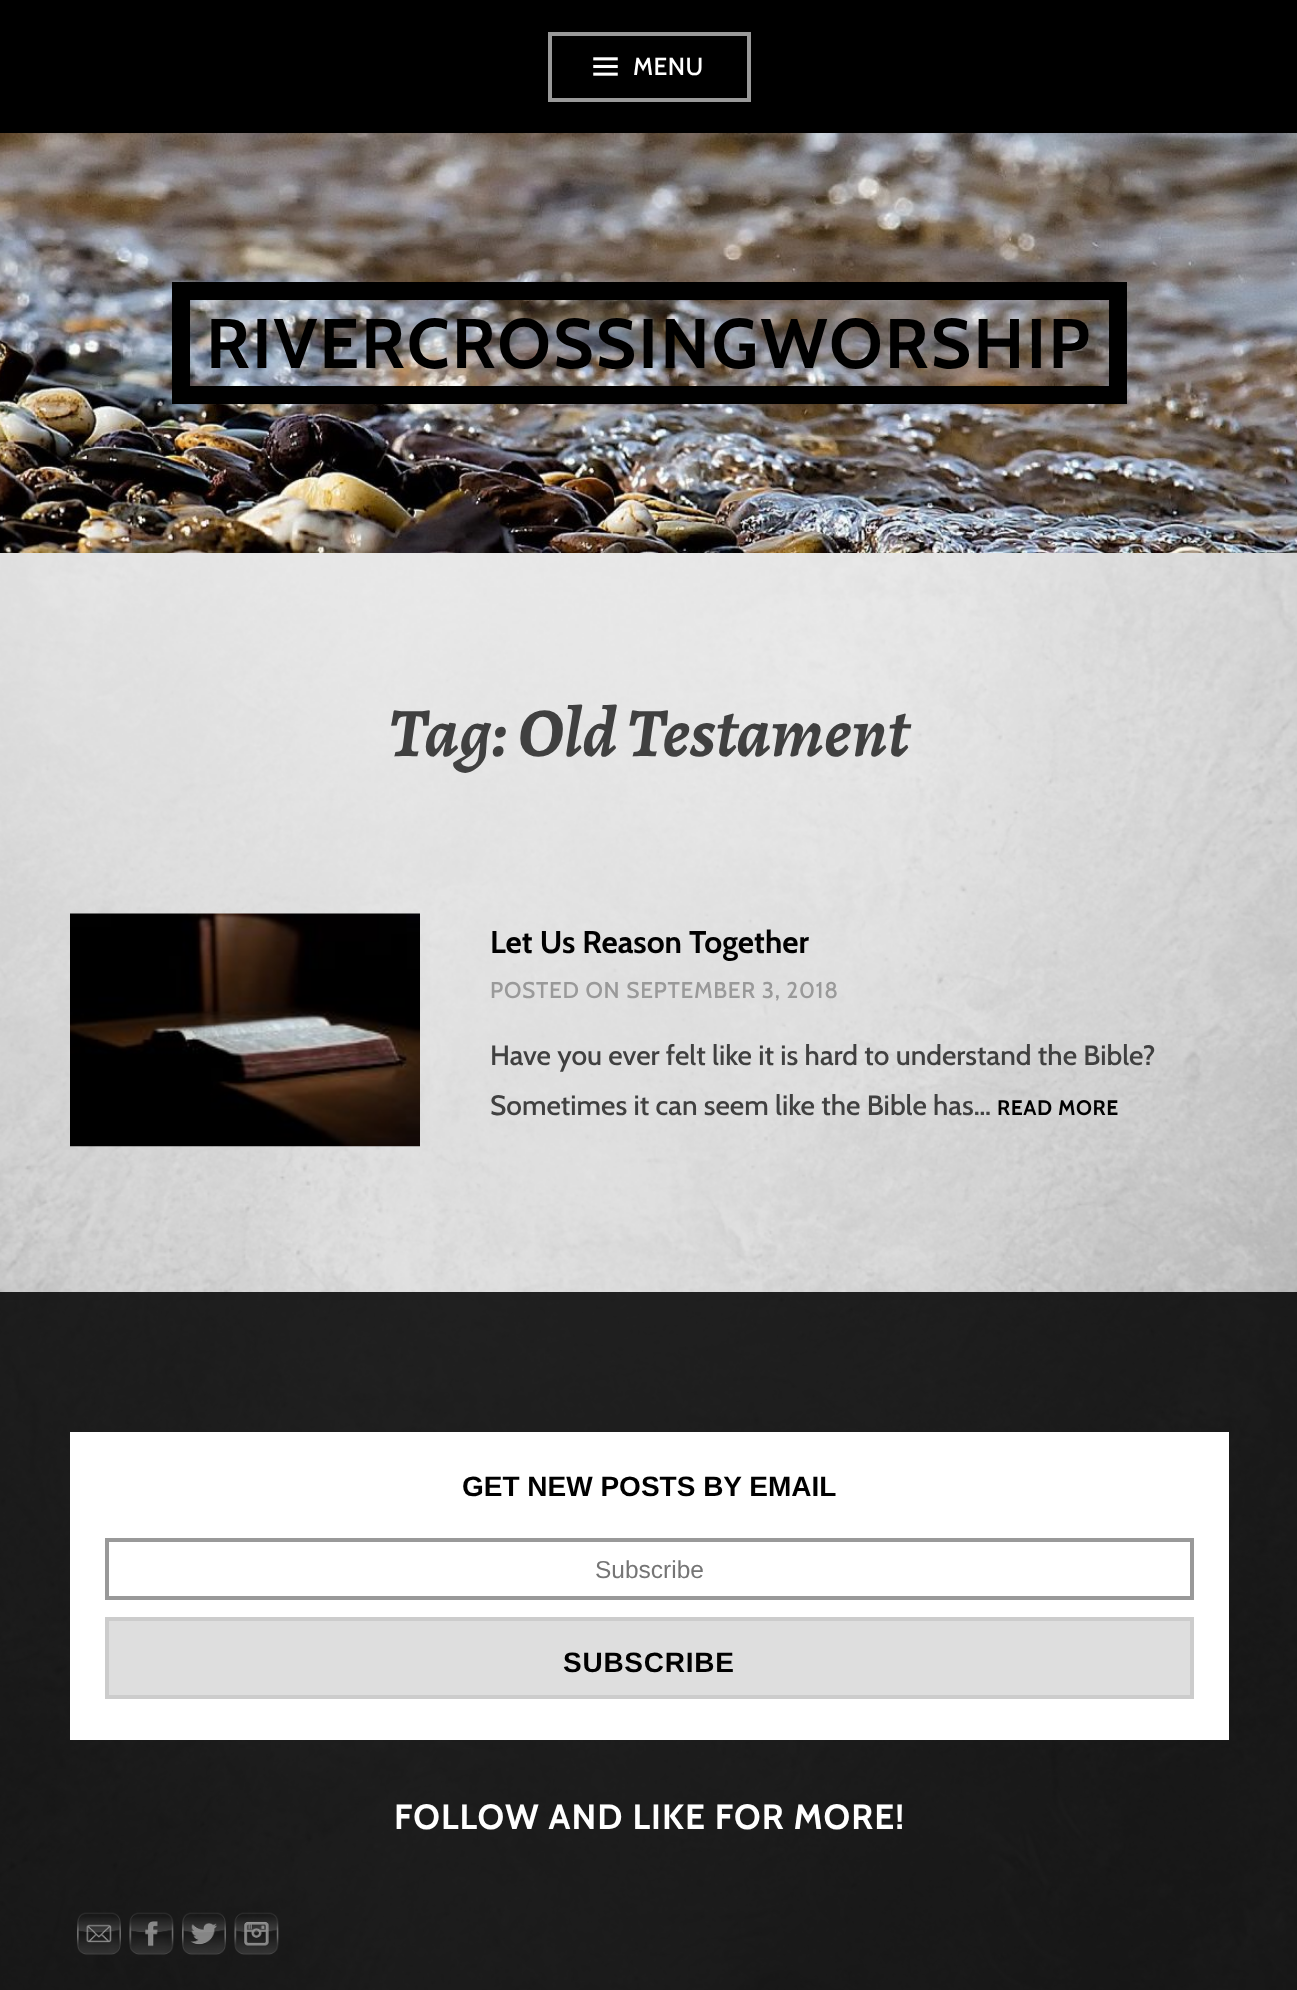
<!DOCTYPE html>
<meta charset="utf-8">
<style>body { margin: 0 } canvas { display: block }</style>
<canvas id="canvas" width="1297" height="1990"></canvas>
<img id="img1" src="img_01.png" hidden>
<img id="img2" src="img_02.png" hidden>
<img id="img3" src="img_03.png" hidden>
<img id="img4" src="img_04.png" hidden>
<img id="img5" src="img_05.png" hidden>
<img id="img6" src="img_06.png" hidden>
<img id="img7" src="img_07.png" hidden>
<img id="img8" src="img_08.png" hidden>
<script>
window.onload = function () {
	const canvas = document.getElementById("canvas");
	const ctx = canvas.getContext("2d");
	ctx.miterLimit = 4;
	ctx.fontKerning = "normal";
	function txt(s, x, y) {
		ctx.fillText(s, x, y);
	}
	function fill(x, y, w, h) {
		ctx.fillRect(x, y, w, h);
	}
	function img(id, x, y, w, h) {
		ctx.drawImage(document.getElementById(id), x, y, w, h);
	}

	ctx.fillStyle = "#FFFFFF";
	fill(0, 0, 1297, 1990);
	img("img1", 0, 553, 1297, 1437);
	ctx.fillStyle = "#000000";
	fill(0, 0, 1297, 133);
	ctx.strokeStyle = "#999999";
	ctx.lineWidth = 4;
	ctx.strokeRect(550, 34, 199, 66);
	img("img2", 593, 57, 25, 19);
	img("img3", 0, 133, 1297, 420);
	ctx.strokeStyle = "#000000";
	ctx.lineWidth = 18;
	ctx.strokeRect(181, 291, 937, 104);
	img("img4", 70, 913, 350, 234);
	ctx.fillStyle = "rgba(0, 0, 0, 0.86)";
	fill(0, 1292, 1297, 698);
	ctx.fillStyle = "#FFFFFF";
	fill(70, 1432, 1159, 308);
	ctx.strokeStyle = "#999999";
	ctx.lineWidth = 4;
	ctx.strokeRect(107, 1540, 1085, 58);
	ctx.fillStyle = "#DEDEDE";
	ctx.beginPath();
	ctx.rect(107, 1619, 1085, 78);
	ctx.fill();
	ctx.strokeStyle = "#CCCCCC";
	ctx.stroke();
	img("img5", 77, 1912, 44, 43);
	img("img6", 129, 1912, 45, 43);
	img("img7", 182, 1912, 44, 43);
	img("img8", 234, 1912, 45, 43);
	ctx.letterSpacing = "0.5px";
	ctx.font = "500 24.5px Cabin";
	ctx.fillStyle = "#FFFFFF";
	txt("MENU", 633, 75);
	ctx.letterSpacing = "2.1px";
	ctx.font = "bold 70px Cabin";
	ctx.fillStyle = "#000000";
	txt("RIVERCROSSINGWORSHIP", 206, 368);
	ctx.letterSpacing = "0px";
	ctx.font = "italic bold 70px Alegreya";
	ctx.fillStyle = "#404040";
	txt("Tag: Old Testament", 389, 756);
	ctx.font = "bold 31.5px Cabin";
	ctx.fillStyle = "#000000";
	txt("Let Us Reason Together", 490, 953);
	ctx.letterSpacing = "0.7px";
	ctx.font = "500 22.75px Cabin";
	ctx.fillStyle = "#999999";
	txt("POSTED ON SEPTEMBER 3, 2018", 490, 998);
	ctx.letterSpacing = "0px";
	ctx.font = "500 28px Cabin";
	ctx.fillStyle = "#404040";
	txt("Have you ever felt like it is hard to understand the Bible?", 490, 1065);
	txt("Sometimes it can seem like the Bible has…", 490, 1115);
	ctx.letterSpacing = "0.6px";
	ctx.font = "bold 21px Cabin";
	ctx.fillStyle = "#000000";
	txt("READ MORE", 997, 1115);
	ctx.letterSpacing = "0px";
	ctx.font = "bold 28px Liberation Sans";
	txt("GET NEW POSTS BY EMAIL", 462, 1496);
	ctx.font = "24.5px Liberation Sans";
	ctx.fillStyle = "#757575";
	txt("Subscribe", 595, 1578);
	ctx.letterSpacing = "0.75px";
	ctx.font = "bold 28px Liberation Sans";
	ctx.fillStyle = "#000000";
	txt("SUBSCRIBE", 563, 1672);
	ctx.letterSpacing = "1.05px";
	ctx.font = "bold 35px Cabin";
	ctx.fillStyle = "#FFFFFF";
	txt("FOLLOW AND LIKE FOR MORE!", 394, 1829);
};
</script>
